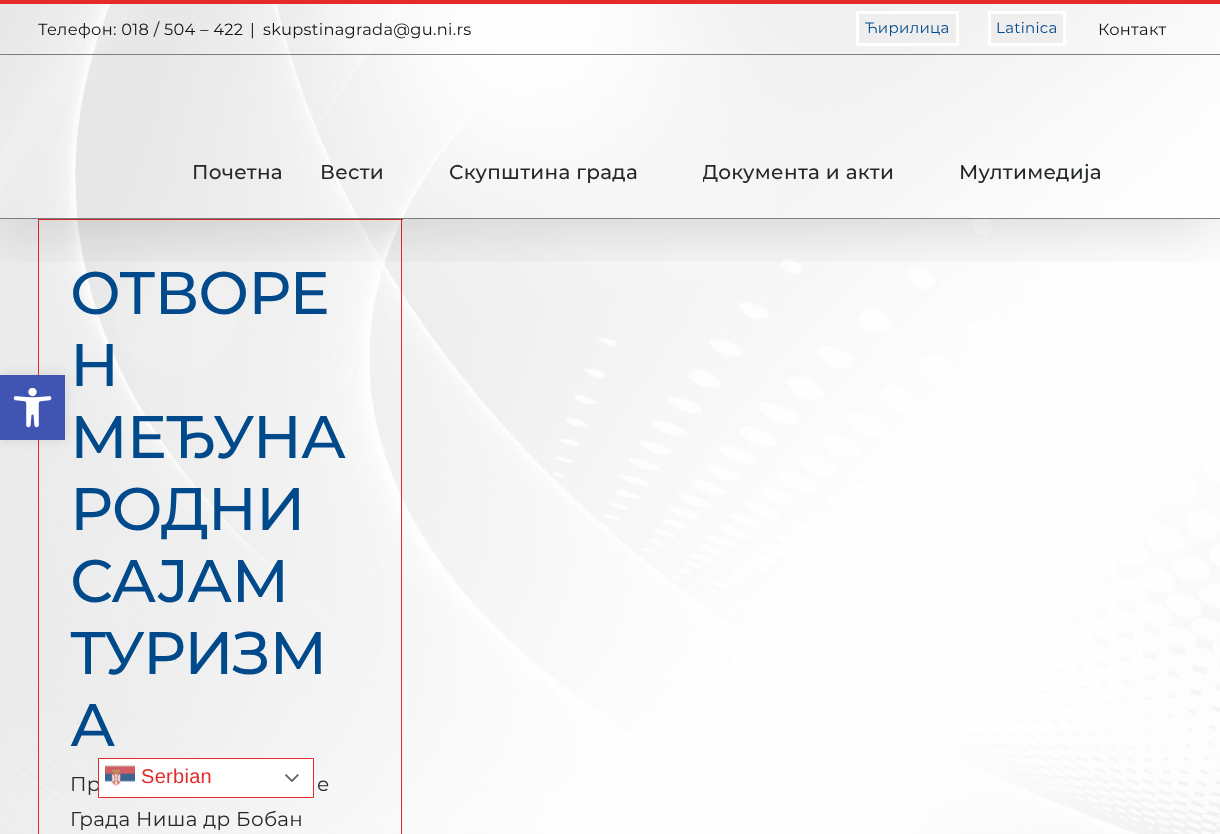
<!DOCTYPE html>
<meta charset="utf-8">
<style>body { margin: 0 } canvas { display: block }</style>
<canvas id="canvas" width="1220" height="834"></canvas>
<img id="img1" src="img_01.png" hidden>
<img id="img2" src="img_02.png" hidden>
<img id="img3" src="img_03.png" hidden>
<img id="img4" src="img_04.png" hidden>
<script>
window.onload = function () {
	const canvas = document.getElementById("canvas");
	const ctx = canvas.getContext("2d");
	ctx.miterLimit = 4;
	ctx.fontKerning = "normal";
	function txt(s, x, y) {
		ctx.fillText(s, x, y);
	}
	function fill(x, y, w, h) {
		ctx.fillRect(x, y, w, h);
	}
	function img(id, x, y, w, h) {
		ctx.drawImage(document.getElementById(id), x, y, w, h);
	}

	ctx.fillStyle = "#FFFFFF";
	fill(0, 0, 1220, 834);
	img("img1", 0, 4, 1220, 830);
	ctx.fillStyle = "#E32B2B";
	fill(38, 219, 365, 1);
	fill(401, 219, 1, 615);
	fill(38, 219, 1, 615);
	ctx.save();
	ctx.beginPath();
	ctx.rect(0, 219, 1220, 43);
	ctx.clip();
	ctx.fillStyle = "rgba(0, 0, 0, 0.14)";
	ctx.filter = "blur(31px)";
	ctx.beginPath();
	ctx.rect(3, 15, 1215, 214);
	ctx.fill();
	ctx.filter = "none";
	ctx.restore();
	fill(0, 0, 1220, 4);
	ctx.fillStyle = "#7C7D81";
	fill(0, 54, 1220, 1);
	ctx.fillStyle = "#EEEEEE";
	fill(859, 14, 97, 29);
	ctx.strokeStyle = "#FFFFFF";
	ctx.lineWidth = 3;
	ctx.strokeRect(857.5, 12.5, 100, 32);
	fill(991, 14, 72, 29);
	ctx.strokeRect(989.5, 12.5, 75, 32);
	ctx.fillStyle = "#7C7D81";
	fill(0, 218, 1220, 1);
	ctx.fillStyle = "rgba(0, 0, 0, 0.1)";
	ctx.filter = "blur(6px)";
	ctx.beginPath();
	ctx.rect(0, 375, 65, 65);
	ctx.fill();
	ctx.filter = "none";
	ctx.fillStyle = "#4054B2";
	fill(0, 375, 65, 65);
	img("img2", 13, 388, 39, 40);
	ctx.letterSpacing = "0.3px";
	ctx.font = "16.25px Montserrat";
	ctx.fillStyle = "#121212";
	txt("Телефон: 018 / 504 – 422", 38, 35);
	txt("|", 250, 35);
	txt("skupstinagrada@gu.ni.rs", 263, 35);
	ctx.font = "15px Montserrat";
	ctx.fillStyle = "#00498A";
	txt("Ћирилица", 865, 33);
	txt("Latinica", 996, 33);
	ctx.font = "16.25px Montserrat";
	ctx.fillStyle = "#121212";
	txt("Контакт", 1098, 35);
	ctx.font = "500 20px Montserrat";
	ctx.fillStyle = "#25282A";
	txt("Почетна", 192, 179);
	txt("Вести", 320, 179);
	txt("Скупштина града", 449, 179);
	ctx.save();
	ctx.beginPath();
	ctx.rect(703, 124, 256, 94);
	ctx.clip();
	txt("Документа и акти", 702, 179);
	ctx.restore();
	txt("Мултимедија", 959, 179);
	ctx.letterSpacing = "-1px";
	ctx.font = "500 60px Montserrat";
	ctx.fillStyle = "#00498A";
	txt("ОТВОРЕ", 70, 314);
	txt("Н", 70, 386);
	txt("МЕЂУНА", 70, 458);
	txt("РОДНИ", 70, 530);
	txt("САЈАМ", 70, 602);
	txt("ТУРИЗМ", 70, 674);
	txt("А", 70, 746);
	ctx.letterSpacing = "0.3px";
	ctx.font = "20px Montserrat";
	ctx.fillStyle = "#25282A";
	txt("Пр", 70, 791);
	txt("е", 317, 791);
	txt("Града Ниша др Бобан", 70, 826);
	ctx.fillStyle = "#FFFFFF";
	ctx.beginPath();
	ctx.rect(98.5, 758.5, 215, 39);
	ctx.fill();
	ctx.strokeStyle = "#E32B2B";
	ctx.lineWidth = 1;
	ctx.stroke();
	img("img3", 105, 765, 30, 21);
	ctx.font = "20px Liberation Sans";
	ctx.fillStyle = "#E32B2B";
	txt("Serbian", 141, 783);
	img("img4", 285, 774, 14, 9);
};
</script>
